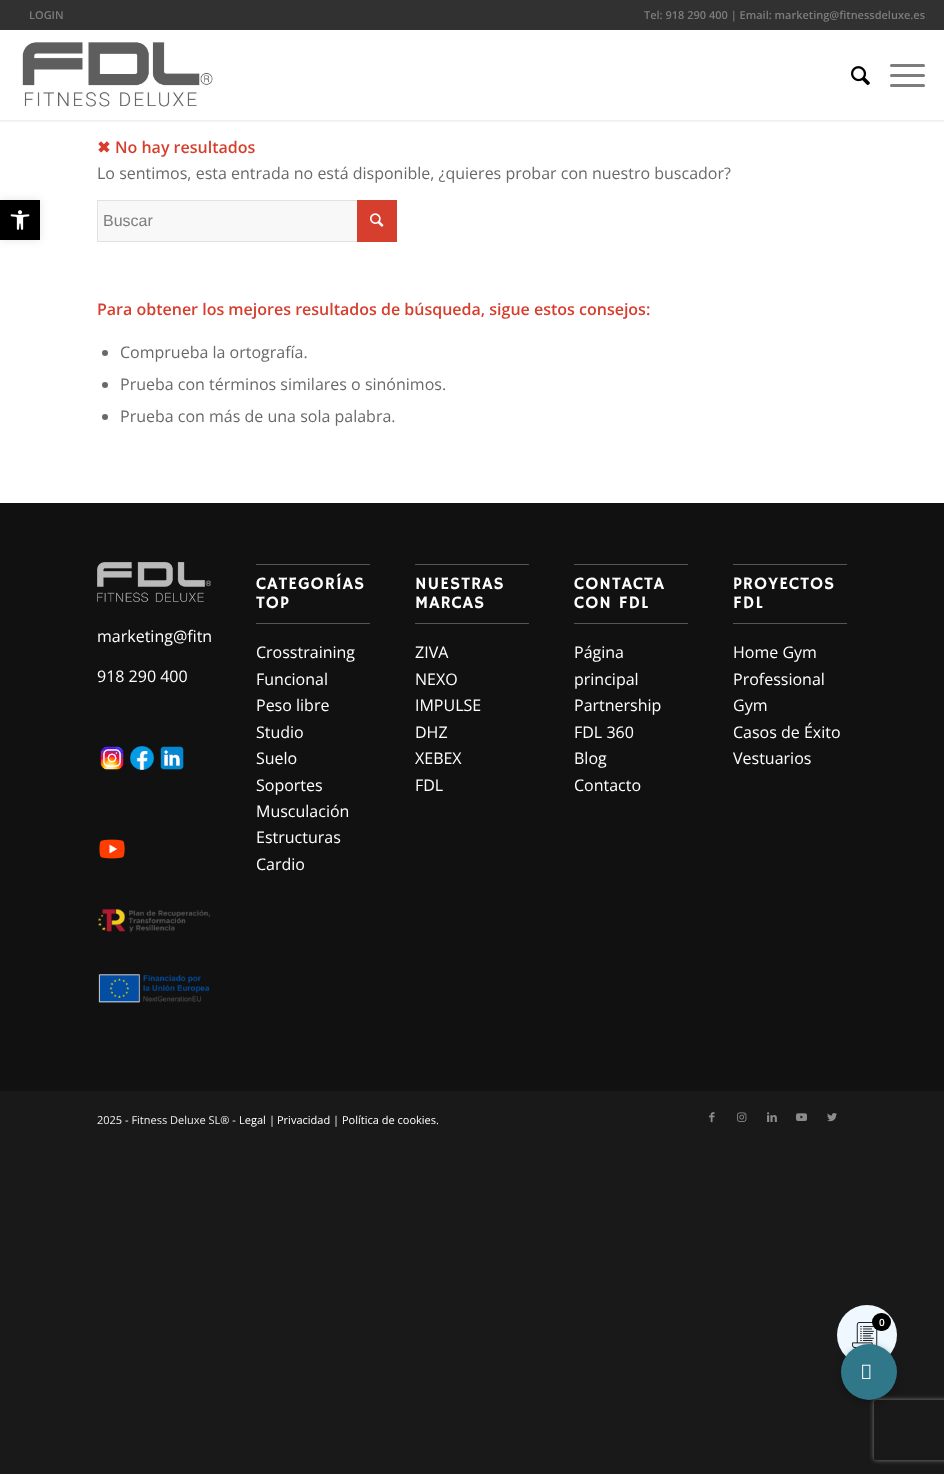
<!DOCTYPE html>
<meta charset="utf-8">
<style>body { margin: 0 } canvas { display: block }</style>
<canvas id="canvas" width="944" height="1474"></canvas>
<img id="img1" src="img_01.png" hidden>
<img id="img2" src="img_02.png" hidden>
<img id="img3" src="img_03.png" hidden>
<img id="img4" src="img_04.png" hidden>
<img id="img5" src="img_05.png" hidden>
<img id="img6" src="img_06.png" hidden>
<img id="img7" src="img_07.png" hidden>
<img id="img8" src="img_08.png" hidden>
<img id="img9" src="img_09.png" hidden>
<img id="img10" src="img_10.png" hidden>
<img id="img11" src="img_11.png" hidden>
<img id="img12" src="img_12.png" hidden>
<img id="img13" src="img_13.png" hidden>
<img id="img14" src="img_14.png" hidden>
<img id="img15" src="img_15.png" hidden>
<img id="img16" src="img_16.png" hidden>
<img id="img17" src="img_17.png" hidden>
<img id="img18" src="img_18.png" hidden>
<script>
window.onload = function () {
	const canvas = document.getElementById("canvas");
	const ctx = canvas.getContext("2d");
	ctx.miterLimit = 4;
	ctx.fontKerning = "normal";
	function txt(s, x, y) {
		ctx.fillText(s, x, y);
	}
	function fill(x, y, w, h) {
		ctx.fillRect(x, y, w, h);
	}
	function round(x, y, w, h, r) {
		ctx.beginPath();
		ctx.roundRect(x, y, w, h, r);
		ctx.fill();
	}
	function img(id, x, y, w, h) {
		ctx.drawImage(document.getElementById(id), x, y, w, h);
	}

	ctx.fillStyle = "#191919";
	fill(0, 0, 944, 1474);
	ctx.fillStyle = "#FFFFFF";
	fill(0, 120, 944, 383);
	ctx.fillStyle = "rgba(0, 0, 0, 0.1)";
	ctx.filter = "blur(5px)";
	ctx.beginPath();
	ctx.rect(0, 200, 40, 40);
	ctx.fill();
	ctx.filter = "none";
	ctx.fillStyle = "#000000";
	fill(0, 200, 40, 40);
	img("img1", 10, 210, 20, 20);
	ctx.fillStyle = "rgba(0, 0, 0, 0.1)";
	ctx.filter = "blur(1px)";
	ctx.beginPath();
	ctx.rect(-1, -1, 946, 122);
	ctx.fill();
	ctx.filter = "none";
	ctx.fillStyle = "#313131";
	fill(0, 0, 944, 30);
	ctx.fillStyle = "#FFFFFF";
	fill(0, 30, 944, 90);
	img("img2", 22, 42, 191, 65);
	img("img3", 851, 66, 19, 20);
	ctx.fillStyle = "#7D7D7D";
	round(890, 74, 35, 3, 1.5);
	round(890, 64, 35, 3, 1.5);
	round(890, 84, 35, 3, 1.5);
	ctx.fillStyle = "#F8F8F8";
	fill(98, 201, 259, 40);
	ctx.strokeStyle = "#E1E1E1";
	ctx.strokeRect(97.5, 200.5, 299, 41);
	ctx.fillStyle = "#D63E2D";
	fill(357, 200, 40, 42);
	img("img4", 370, 213, 14, 14);
	ctx.fillStyle = "#696969";
	ctx.beginPath();
	ctx.arc(105, 353, 3, 0, Math.PI * 2);
	ctx.fill();
	ctx.beginPath();
	ctx.arc(105, 385, 3, 0, Math.PI * 2);
	ctx.fill();
	ctx.beginPath();
	ctx.arc(105, 417, 3, 0, Math.PI * 2);
	ctx.fill();
	ctx.fillStyle = "#111111";
	fill(0, 503, 944, 588);
	img("img5", 97, 562, 114, 40);
	img("img6", 100, 746, 24, 24);
	img("img7", 130, 746, 24, 24);
	img("img8", 160, 746, 24, 24);
	img("img9", 99, 839, 26, 20);
	img("img10", 98, 908, 113, 24);
	img("img11", 98, 974, 112, 29);
	ctx.fillStyle = "#555555";
	fill(256, 564, 114, 1);
	fill(256, 623, 114, 1);
	fill(415, 564, 114, 1);
	fill(415, 623, 114, 1);
	fill(574, 564, 114, 1);
	fill(574, 623, 114, 1);
	fill(733, 564, 114, 1);
	fill(733, 623, 114, 1);
	img("img12", 709, 1112, 6, 11);
	img("img13", 737, 1112, 10, 10);
	img("img14", 767, 1112, 10, 10);
	img("img15", 796, 1113, 11, 8);
	img("img16", 827, 1113, 10, 9);
	ctx.fillStyle = "#F0F8FF";
	ctx.beginPath();
	ctx.arc(867, 1335, 30, 0, Math.PI * 2);
	ctx.fill();
	img("img17", 852, 1322, 26, 26);
	ctx.fillStyle = "#000000";
	round(872, 1313, 19, 18, 9);
	ctx.fillStyle = "rgba(0, 0, 0, 0.2)";
	ctx.filter = "blur(3px)";
	ctx.beginPath();
	ctx.roundRect(840, 1345, 58, 58, 29);
	ctx.fill();
	ctx.filter = "none";
	ctx.save();
	ctx.beginPath();
	ctx.moveTo(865, 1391);
	ctx.lineTo(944, 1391);
	ctx.lineTo(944, 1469);
	ctx.lineTo(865, 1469);
	ctx.closePath();
	ctx.moveTo(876, 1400);
	ctx.lineTo(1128, 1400);
	ctx.bezierCurveTo(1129, 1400, 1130, 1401, 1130, 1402);
	ctx.lineTo(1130, 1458);
	ctx.bezierCurveTo(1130, 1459, 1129, 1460, 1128, 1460);
	ctx.lineTo(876, 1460);
	ctx.bezierCurveTo(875, 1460, 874, 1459, 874, 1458);
	ctx.lineTo(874, 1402);
	ctx.bezierCurveTo(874, 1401, 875, 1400, 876, 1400);
	ctx.closePath();
	ctx.clip("evenodd");
	ctx.fillStyle = "#808080";
	ctx.filter = "blur(2.5px)";
	ctx.beginPath();
	ctx.roundRect(874, 1400, 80, 60, 2);
	ctx.fill();
	ctx.filter = "none";
	ctx.restore();
	ctx.fillStyle = "#2F7789";
	ctx.beginPath();
	ctx.arc(869, 1372, 28, 0, Math.PI * 2);
	ctx.fill();
	img("img18", 862, 1364, 9, 15);
	ctx.font = "600 11px Open Sans";
	ctx.fillStyle = "#7D7D7D";
	txt("LOGIN", 29, 19);
	txt("Tel: 918 290 400 | Email: marketing@fitnessdeluxe.es", 644, 19);
	ctx.font = "bold 16px DejaVu Sans";
	ctx.fillStyle = "#D63E2D";
	txt("✖", 97, 153);
	ctx.font = "600 16px Open Sans";
	txt("No hay resultados", 115, 153);
	ctx.font = "16px Open Sans";
	ctx.fillStyle = "#696969";
	txt("Lo sentimos, esta entrada no está disponible, ¿quieres probar con nuestro buscador?", 97, 179);
	ctx.font = "16px Liberation Sans";
	ctx.fillStyle = "#7D7D7D";
	txt("Buscar", 103, 226);
	ctx.font = "600 16px Open Sans";
	ctx.fillStyle = "#D63E2D";
	txt("Para obtener los mejores resultados de búsqueda, sigue estos consejos:", 97, 315);
	ctx.font = "16px Open Sans";
	ctx.fillStyle = "#696969";
	txt("Comprueba la ortografía.", 120, 358);
	txt("Prueba con términos similares o sinónimos.", 120, 390);
	txt("Prueba con más de una sola palabra.", 120, 422);
	ctx.fillStyle = "#FFFFFF";
	txt("marketing@fitn", 97, 642);
	txt("918 290 400", 97, 682);
	ctx.letterSpacing = "1px";
	ctx.font = "17.5px Hammersmith One";
	txt("CATEGORÍAS", 256, 589);
	txt("TOP", 256, 608);
	ctx.letterSpacing = "0px";
	ctx.font = "16px Open Sans";
	txt("Crosstraining", 256, 658);
	txt("Funcional", 256, 685);
	txt("Peso libre", 256, 711);
	txt("Studio", 256, 738);
	txt("Suelo", 256, 764);
	txt("Soportes", 256, 791);
	txt("Musculación", 256, 817);
	txt("Estructuras", 256, 843);
	txt("Cardio", 256, 870);
	ctx.letterSpacing = "1px";
	ctx.font = "17.5px Hammersmith One";
	txt("NUESTRAS", 415, 589);
	txt("MARCAS", 415, 608);
	ctx.letterSpacing = "0px";
	ctx.font = "16px Open Sans";
	txt("ZIVA", 415, 658);
	txt("NEXO", 415, 685);
	txt("IMPULSE", 415, 711);
	txt("DHZ", 415, 738);
	txt("XEBEX", 415, 764);
	txt("FDL", 415, 791);
	ctx.letterSpacing = "1px";
	ctx.font = "17.5px Hammersmith One";
	txt("CONTACTA", 574, 589);
	txt("CON FDL", 574, 608);
	ctx.letterSpacing = "0px";
	ctx.font = "16px Open Sans";
	txt("Página", 574, 658);
	txt("principal", 574, 685);
	txt("Partnership", 574, 711);
	txt("FDL 360", 574, 738);
	txt("Blog", 574, 764);
	txt("Contacto", 574, 791);
	ctx.letterSpacing = "1px";
	ctx.font = "17.5px Hammersmith One";
	txt("PROYECTOS", 733, 589);
	txt("FDL", 733, 608);
	ctx.letterSpacing = "0px";
	ctx.font = "16px Open Sans";
	txt("Home Gym", 733, 658);
	txt("Professional", 733, 685);
	txt("Gym", 733, 711);
	txt("Casos de Éxito", 733, 738);
	txt("Vestuarios", 733, 764);
	ctx.font = "11px Open Sans";
	ctx.fillStyle = "#EEEEEE";
	txt("2025 - Fitness Deluxe SL® -", 97, 1124);
	ctx.fillStyle = "#FFFFFF";
	txt("Legal", 239, 1124);
	ctx.fillStyle = "#EEEEEE";
	txt("|", 269, 1124);
	ctx.fillStyle = "#FFFFFF";
	txt("Privacidad", 277, 1124);
	ctx.fillStyle = "#EEEEEE";
	txt("|", 333, 1124);
	ctx.fillStyle = "#FFFFFF";
	txt("Política de cookies", 342, 1124);
	ctx.fillStyle = "#EEEEEE";
	txt(".", 436, 1124);
	ctx.font = "600 10px Open Sans";
	ctx.fillStyle = "#FFFFFF";
	txt("0", 879, 1326);
};
</script>
